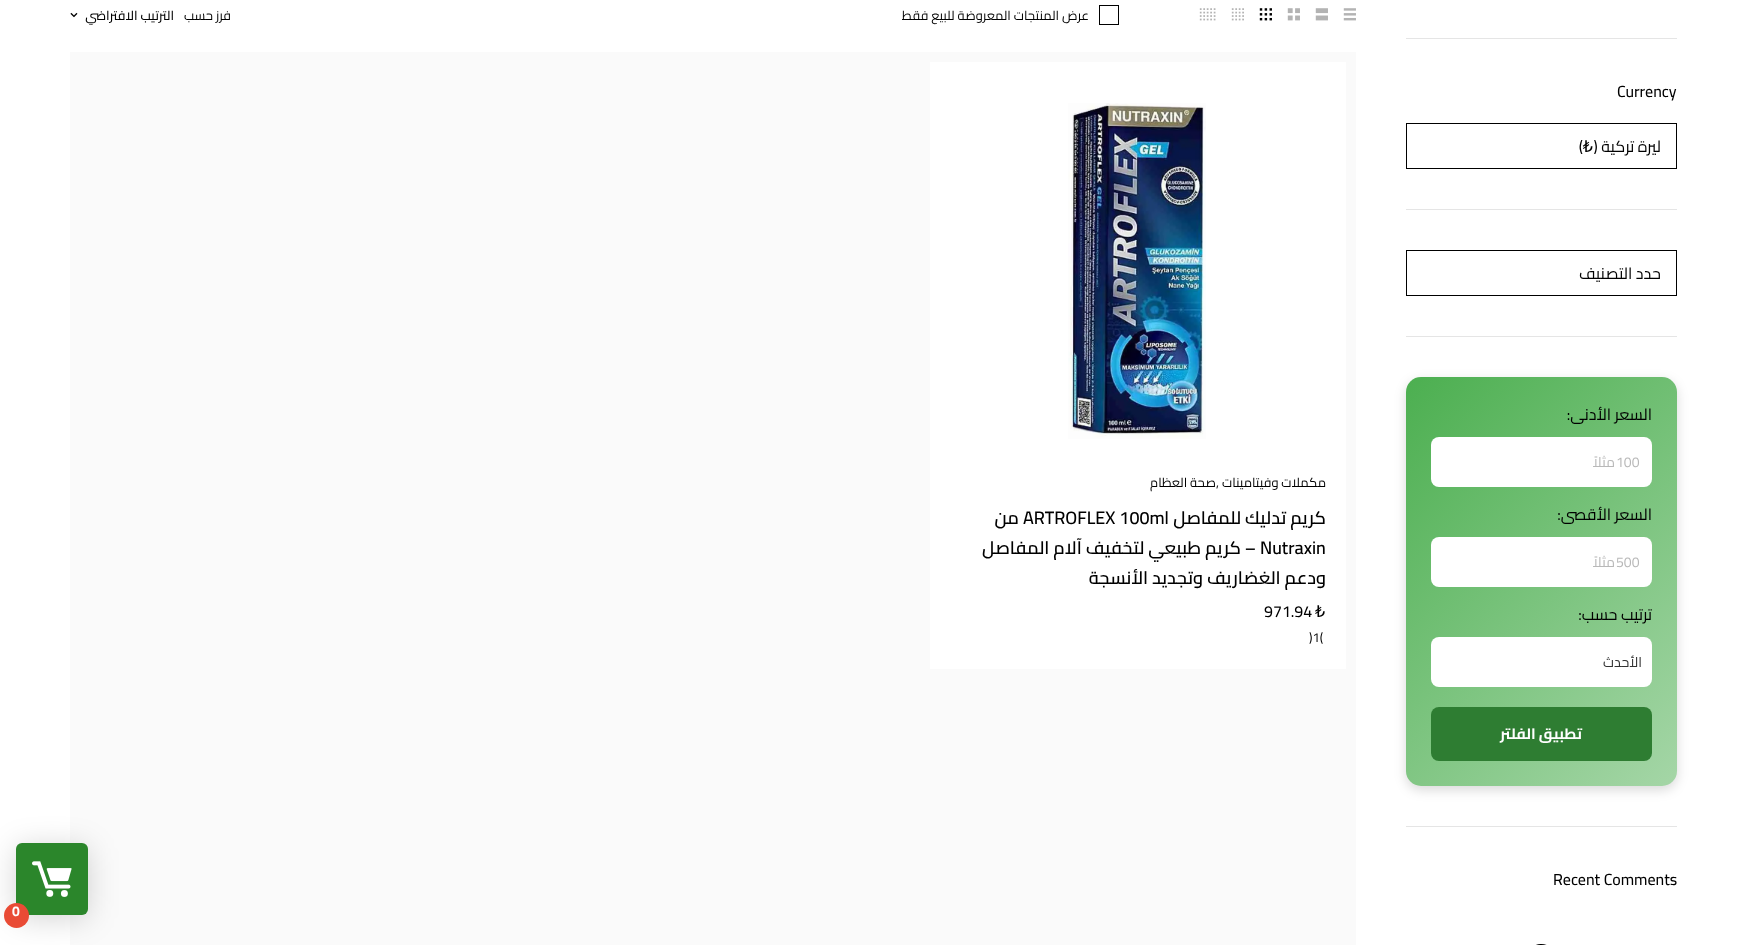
<!DOCTYPE html>
<meta charset="utf-8">
<style>body { margin: 0 } canvas { display: block }</style>
<canvas id="canvas" width="1747" height="945"></canvas>
<img id="img1" src="img_01.png" hidden>
<img id="img2" src="img_02.png" hidden>
<img id="img3" src="img_03.png" hidden>
<img id="img4" src="img_04.png" hidden>
<img id="img5" src="img_05.png" hidden>
<img id="img6" src="img_06.png" hidden>
<img id="img7" src="img_07.png" hidden>
<img id="img8" src="img_08.png" hidden>
<img id="img9" src="img_09.png" hidden>
<script>
window.onload = function () {
	const canvas = document.getElementById("canvas");
	const ctx = canvas.getContext("2d");
	ctx.miterLimit = 4;
	ctx.fontKerning = "normal";
	function txt(s, x, y) {
		ctx.fillText(s, x, y);
	}
	function fill(x, y, w, h) {
		ctx.fillRect(x, y, w, h);
	}
	function round(x, y, w, h, r) {
		ctx.beginPath();
		ctx.roundRect(x, y, w, h, r);
		ctx.fill();
	}
	function img(id, x, y, w, h) {
		ctx.drawImage(document.getElementById(id), x, y, w, h);
	}
	let gradient;

	ctx.fillStyle = "#FFFFFF";
	fill(0, 0, 1747, 945);
	ctx.fillStyle = "#E5E5E5";
	fill(1406, 38, 271, 1);
	ctx.strokeStyle = "#000000";
	ctx.strokeRect(1406.5, 123.5, 270, 45);
	fill(1406, 209, 271, 1);
	ctx.strokeRect(1406.5, 250.5, 270, 45);
	fill(1406, 336, 271, 1);
	ctx.fillStyle = "rgba(0, 0, 0, 0.15)";
	ctx.filter = "blur(6px)";
	ctx.beginPath();
	ctx.roundRect(1406, 381, 271, 409, 15);
	ctx.fill();
	ctx.filter = "none";
	gradient = ctx.createLinearGradient(1372, 412, 1712, 752);
	gradient.addColorStop(0, "#4CAF50");
	gradient.addColorStop(1, "#A5D6A7");
	ctx.fillStyle = gradient;
	round(1406, 377, 271, 409, 15);
	ctx.fillStyle = "#FFFFFF";
	round(1431, 437, 221, 50, 8);
	round(1431, 537, 221, 50, 8);
	round(1431, 637, 221, 50, 8);
	ctx.fillStyle = "#2E7D32";
	round(1431, 707, 221, 54, 8);
	ctx.fillStyle = "#E5E5E5";
	fill(1406, 826, 271, 1);
	ctx.beginPath();
	ctx.moveTo(1531.5, 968.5);
	ctx.bezierCurveTo(1519, 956, 1538, 937, 1550.5, 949.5);
	ctx.lineWidth = 3;
	ctx.stroke();
	img("img1", 1343, 8, 13, 13);
	img("img2", 1315, 8, 13, 13);
	img("img3", 1287, 8, 13, 13);
	img("img4", 1259, 8, 13, 13);
	img("img5", 1231, 8, 13, 13);
	img("img6", 1199, 8, 17, 13);
	ctx.lineWidth = 1;
	ctx.strokeRect(1099.5, 5.5, 19, 19);
	img("img7", 70, 12, 8, 6);
	ctx.fillStyle = "#FAFAFA";
	fill(70, 52, 1286, 893);
	ctx.fillStyle = "#FFFFFF";
	fill(930, 62, 416, 607);
	img("img8", 1068, 103, 138, 336);
	ctx.fillStyle = "rgba(0, 0, 0, 0.17)";
	ctx.filter = "blur(15px)";
	ctx.beginPath();
	ctx.roundRect(16, 847, 72, 72, 6);
	ctx.fill();
	ctx.filter = "none";
	ctx.fillStyle = "#2B862B";
	round(16, 843, 72, 72, 6);
	img("img9", 32, 861, 40, 36);
	ctx.fillStyle = "#E94B35";
	ctx.beginPath();
	ctx.arc(16.5, 915.5, 12.5, 0, Math.PI * 2);
	ctx.fill();
	ctx.font = "500 16px Cairo";
	ctx.fillStyle = "#000000";
	txt("Currency", 1617, 97);
	ctx.direction = "rtl";
	ctx.font = "16px Cairo";
	txt("ليرة تركية (", 1661, 152);
	ctx.font = "16px DejaVu Sans";
	txt("₺", 1593, 152);
	ctx.font = "16px Cairo";
	txt(")", 1583, 152);
	ctx.font = "16px 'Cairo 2'";
	txt("حدد التصنيف", 1661, 279);
	txt("السعر الأدنى:", 1652, 420);
	ctx.direction = "ltr";
	ctx.font = "14px 'Cairo 2'";
	ctx.fillStyle = "#B8B8B8";
	txt("100", 1616, 467);
	ctx.direction = "rtl";
	txt("مثلاً", 1615, 467);
	ctx.font = "16px 'Cairo 2'";
	ctx.fillStyle = "#000000";
	txt("السعر الأقصى:", 1652, 520);
	ctx.direction = "ltr";
	ctx.font = "14px 'Cairo 2'";
	ctx.fillStyle = "#B8B8B8";
	txt("500", 1616, 567);
	ctx.direction = "rtl";
	txt("مثلاً", 1615, 567);
	ctx.font = "16px 'Cairo 2'";
	ctx.fillStyle = "#000000";
	txt("ترتيب حسب:", 1652, 620);
	ctx.font = "14px 'Cairo 2'";
	ctx.fillStyle = "#333333";
	txt("الأحدث", 1642, 667);
	ctx.font = "bold 15px Cairo";
	ctx.fillStyle = "#FFFFFF";
	txt("تطبيق الفلتر", 1582, 739);
	ctx.direction = "ltr";
	ctx.font = "500 16px Cairo";
	ctx.fillStyle = "#000000";
	txt("Recent Comments", 1553, 885);
	ctx.direction = "rtl";
	ctx.font = "13px 'Cairo 2'";
	txt("عرض المنتجات المعروضة للبيع فقط", 1089, 20);
	txt("فرز حسب", 231, 20);
	ctx.font = "500 13px Cairo";
	txt("الترتيب الافتراضي", 174, 20);
	ctx.font = "13px 'Cairo 2'";
	txt("مكملات وفيتامينات", 1326, 487);
	ctx.direction = "ltr";
	txt(",", 1216, 487);
	ctx.direction = "rtl";
	txt("صحة العظام", 1216, 487);
	ctx.font = "600 18px Cairo";
	txt("كريم تدليك للمفاصل", 1326, 524);
	ctx.direction = "ltr";
	txt("ARTROFLEX 100ml", 1023, 524);
	ctx.direction = "rtl";
	txt("من", 1019, 524);
	ctx.direction = "ltr";
	txt("Nutraxin", 1260, 554);
	ctx.direction = "rtl";
	txt("– كريم طبيعي لتخفيف آلام المفاصل", 1256, 554);
	txt("ودعم الغضاريف وتجديد الأنسجة", 1326, 584);
	ctx.direction = "ltr";
	ctx.font = "16px DejaVu Sans";
	txt("₺", 1315, 617);
	ctx.font = "500 16px Cairo";
	txt("971.94", 1264, 617);
	ctx.font = "13px 'Cairo 2'";
	txt(")1(", 1309, 642);
	ctx.font = "bold 14px Cairo";
	ctx.fillStyle = "#FFFFFF";
	txt("0", 12, 916);
};
</script>
